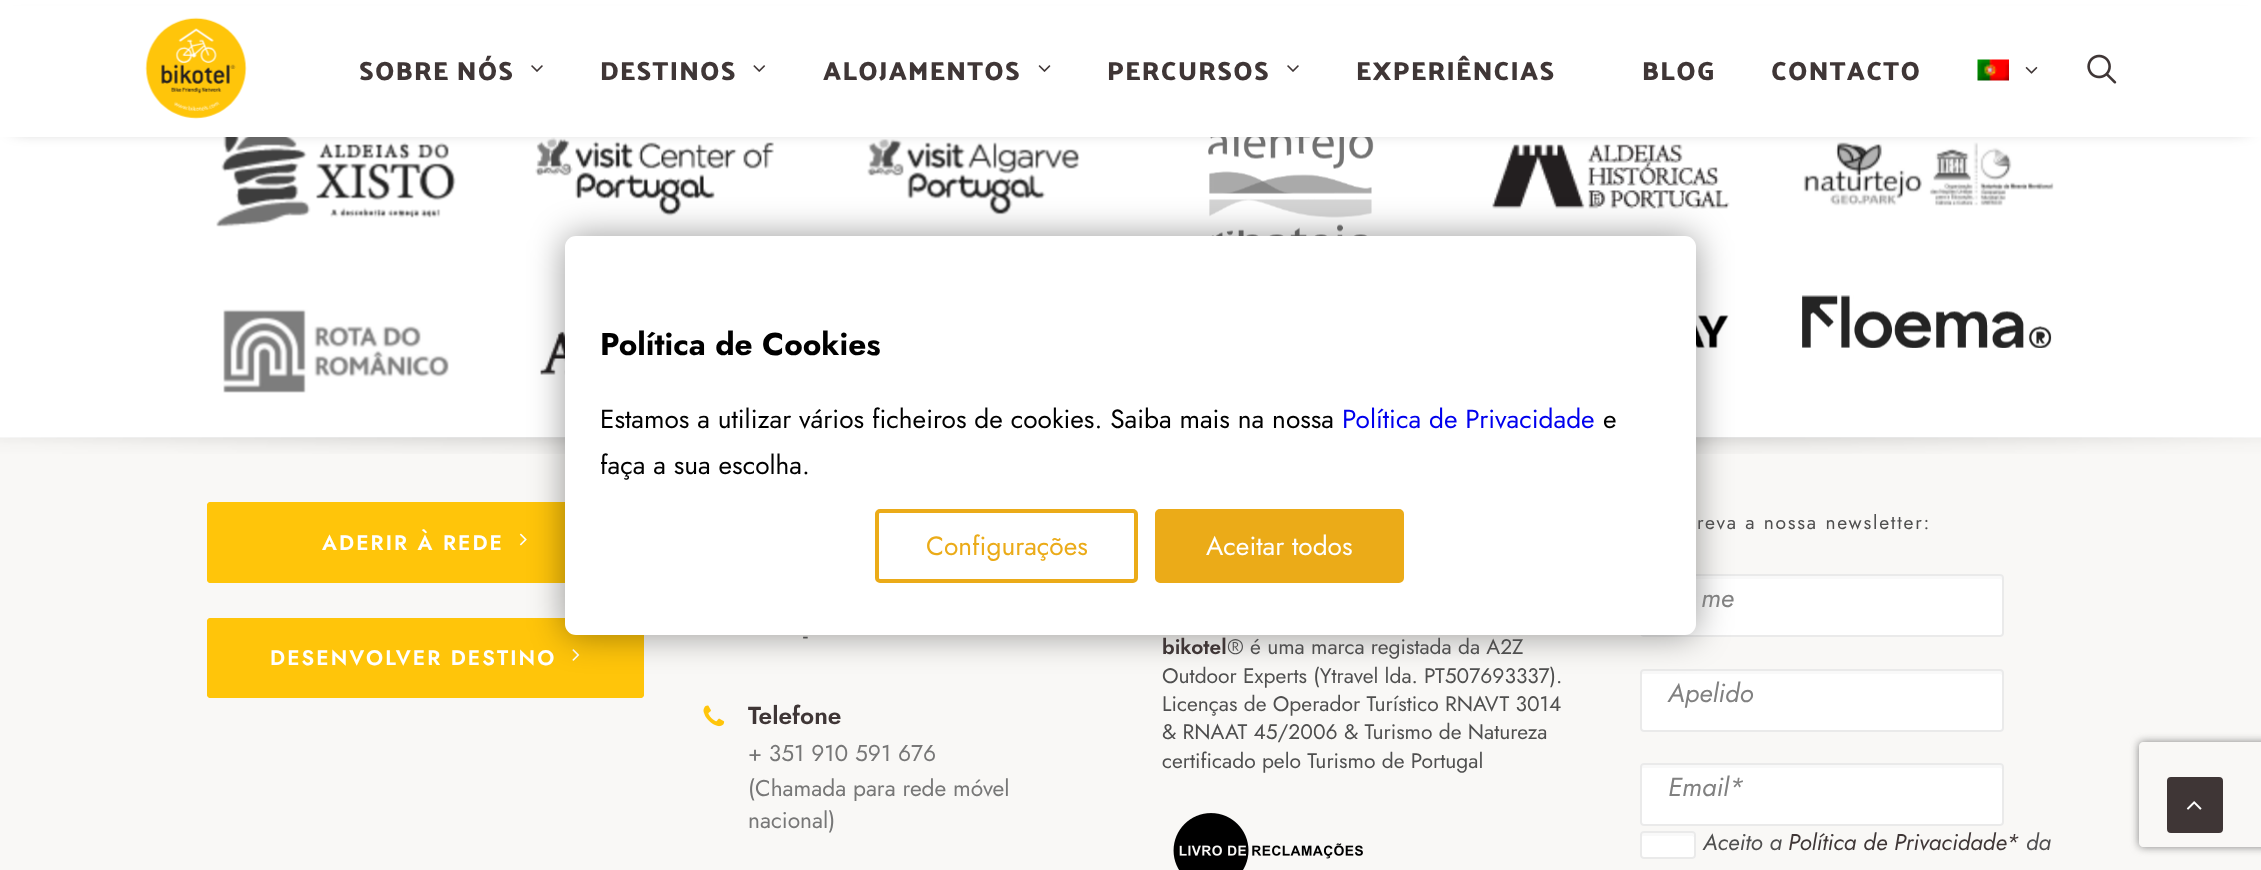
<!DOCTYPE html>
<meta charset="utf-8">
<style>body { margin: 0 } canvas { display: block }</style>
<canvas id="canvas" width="2261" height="870"></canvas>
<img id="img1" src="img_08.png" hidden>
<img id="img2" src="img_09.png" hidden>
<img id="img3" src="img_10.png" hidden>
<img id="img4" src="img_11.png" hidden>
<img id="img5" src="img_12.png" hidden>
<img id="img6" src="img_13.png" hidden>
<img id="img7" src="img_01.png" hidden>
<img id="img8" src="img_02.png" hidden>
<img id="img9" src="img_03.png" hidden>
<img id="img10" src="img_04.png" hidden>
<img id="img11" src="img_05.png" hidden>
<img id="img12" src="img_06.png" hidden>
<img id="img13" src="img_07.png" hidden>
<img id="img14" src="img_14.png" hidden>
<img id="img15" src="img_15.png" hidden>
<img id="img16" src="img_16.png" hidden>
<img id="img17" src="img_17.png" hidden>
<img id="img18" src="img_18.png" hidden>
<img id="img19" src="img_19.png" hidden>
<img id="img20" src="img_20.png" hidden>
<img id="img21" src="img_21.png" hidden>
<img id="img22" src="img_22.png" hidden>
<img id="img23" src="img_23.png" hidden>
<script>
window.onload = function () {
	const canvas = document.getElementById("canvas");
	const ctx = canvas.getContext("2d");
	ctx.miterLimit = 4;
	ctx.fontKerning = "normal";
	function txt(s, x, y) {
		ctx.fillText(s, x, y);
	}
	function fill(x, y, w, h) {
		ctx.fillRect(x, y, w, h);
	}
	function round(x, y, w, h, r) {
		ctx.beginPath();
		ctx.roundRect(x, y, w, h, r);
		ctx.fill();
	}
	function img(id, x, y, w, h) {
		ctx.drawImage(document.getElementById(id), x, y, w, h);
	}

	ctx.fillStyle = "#FFFFFF";
	fill(0, 0, 2261, 870);
	img("img1", 216, 137, 240, 90);
	img("img2", 535, 137, 239, 79);
	img("img3", 867, 139, 213, 76);
	img("img4", 1208, 137, 166, 99);
	img("img5", 1492, 144, 238, 65);
	img("img6", 1803, 142, 251, 64);
	ctx.fillStyle = "rgba(0, 0, 0, 0.6)";
	ctx.filter = "blur(9px)";
	ctx.beginPath();
	ctx.rect(14, 25, 2233, 101);
	ctx.fill();
	ctx.filter = "none";
	ctx.fillStyle = "#FFFFFF";
	fill(0, 6, 2261, 131);
	img("img7", 145, 17, 102, 102);
	img("img8", 531, 65, 12, 7);
	img("img9", 753, 65, 13, 7);
	img("img10", 1038, 65, 13, 7);
	img("img8", 1287, 65, 12, 7);
	img("img11", 1977, 59, 32, 22);
	img("img12", 2025, 66, 13, 8);
	img("img13", 2087, 54, 30, 30);
	img("img14", 223, 309, 226, 84);
	img("img15", 540, 331, 25, 44);
	img("img16", 1696, 302, 33, 59);
	img("img17", 1802, 295, 250, 53);
	ctx.fillStyle = "#F9F8F6";
	fill(0, 438, 2261, 432);
	img("img18", 0, 437, 2261, 17);
	ctx.fillStyle = "#FFC50A";
	ctx.beginPath();
	ctx.roundRect(208, 503, 435, 79, 3);
	ctx.fill();
	ctx.strokeStyle = "#FFC50A";
	ctx.lineWidth = 2;
	ctx.stroke();
	img("img19", 519, 533, 8, 13);
	ctx.beginPath();
	ctx.roundRect(208, 503, 435, 79, 3);
	ctx.stroke();
	ctx.beginPath();
	ctx.roundRect(208, 619, 435, 78, 3);
	ctx.fill();
	ctx.stroke();
	img("img20", 572, 649, 8, 12);
	ctx.beginPath();
	ctx.roundRect(208, 619, 435, 78, 3);
	ctx.stroke();
	ctx.fillStyle = "#FFFFFF";
	round(1640, 574, 364, 63, 4);
	ctx.fillStyle = "#F9F9F9";
	ctx.beginPath();
	ctx.moveTo(1643, 579);
	ctx.lineTo(2000, 579);
	ctx.bezierCurveTo(2001, 579, 2002, 580, 2002, 581);
	ctx.lineTo(2002, 578);
	ctx.bezierCurveTo(2002, 577, 2001, 576, 2000, 576);
	ctx.lineTo(1644, 576);
	ctx.bezierCurveTo(1643, 576, 1642, 577, 1642, 578);
	ctx.lineTo(1642, 581);
	ctx.bezierCurveTo(1642, 580, 1642, 579, 1643, 579);
	ctx.closePath();
	ctx.fill();
	ctx.beginPath();
	ctx.roundRect(1641, 575, 362, 61, 3);
	ctx.strokeStyle = "#EAEAEA";
	ctx.stroke();
	ctx.fillStyle = "#FFFFFF";
	round(1640, 669, 364, 63, 4);
	ctx.fillStyle = "#F9F9F9";
	ctx.beginPath();
	ctx.moveTo(1643, 674);
	ctx.lineTo(2000, 674);
	ctx.bezierCurveTo(2001, 674, 2002, 675, 2002, 676);
	ctx.bezierCurveTo(2002, 674, 2003, 670, 2000, 670);
	ctx.lineTo(1644, 670);
	ctx.bezierCurveTo(1641, 670, 1642, 674, 1642, 676);
	ctx.bezierCurveTo(1642, 675, 1642, 674, 1643, 674);
	ctx.closePath();
	ctx.fill();
	ctx.beginPath();
	ctx.roundRect(1641, 670, 362, 61, 3);
	ctx.stroke();
	ctx.fillStyle = "#FFFFFF";
	round(1640, 763, 364, 63, 4);
	ctx.fillStyle = "#F9F9F9";
	ctx.beginPath();
	ctx.moveTo(1643, 768);
	ctx.lineTo(2000, 768);
	ctx.bezierCurveTo(2001, 768, 2002, 769, 2002, 770);
	ctx.lineTo(2002, 767);
	ctx.bezierCurveTo(2002, 766, 2001, 765, 2000, 765);
	ctx.lineTo(1644, 765);
	ctx.bezierCurveTo(1643, 765, 1642, 766, 1642, 767);
	ctx.lineTo(1642, 770);
	ctx.bezierCurveTo(1642, 769, 1642, 768, 1643, 768);
	ctx.closePath();
	ctx.fill();
	ctx.beginPath();
	ctx.roundRect(1641, 764, 362, 61, 3);
	ctx.stroke();
	ctx.save();
	ctx.beginPath();
	ctx.moveTo(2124, 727);
	ctx.lineTo(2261, 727);
	ctx.lineTo(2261, 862);
	ctx.lineTo(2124, 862);
	ctx.closePath();
	ctx.moveTo(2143, 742);
	ctx.lineTo(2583, 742);
	ctx.bezierCurveTo(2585, 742, 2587, 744, 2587, 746);
	ctx.lineTo(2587, 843);
	ctx.bezierCurveTo(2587, 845, 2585, 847, 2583, 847);
	ctx.lineTo(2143, 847);
	ctx.bezierCurveTo(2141, 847, 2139, 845, 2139, 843);
	ctx.lineTo(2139, 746);
	ctx.bezierCurveTo(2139, 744, 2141, 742, 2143, 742);
	ctx.closePath();
	ctx.clip("evenodd");
	ctx.fillStyle = "#808080";
	ctx.filter = "blur(4.5px)";
	ctx.beginPath();
	ctx.roundRect(2139, 742, 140, 105, 4);
	ctx.fill();
	ctx.filter = "none";
	ctx.restore();
	ctx.fillStyle = "#FFFFFF";
	round(1640, 831, 56, 28, 4);
	ctx.fillStyle = "#F9F9F9";
	ctx.beginPath();
	ctx.moveTo(1643, 836);
	ctx.lineTo(1692, 836);
	ctx.bezierCurveTo(1693, 836, 1694, 837, 1694, 838);
	ctx.bezierCurveTo(1694, 831, 1692, 833, 1684, 833);
	ctx.lineTo(1652, 833);
	ctx.bezierCurveTo(1644, 833, 1642, 831, 1642, 838);
	ctx.bezierCurveTo(1642, 837, 1642, 836, 1643, 836);
	ctx.closePath();
	ctx.fill();
	ctx.beginPath();
	ctx.roundRect(1641, 832, 54, 26, 3);
	ctx.stroke();
	img("img21", 703, 705, 22, 22);
	img("img22", 1173, 813, 190, 57);
	ctx.fillStyle = "rgba(0, 0, 0, 0.4)";
	ctx.filter = "blur(17.5px)";
	ctx.beginPath();
	ctx.roundRect(565, 236, 1131, 399, 11);
	ctx.fill();
	ctx.filter = "none";
	ctx.fillStyle = "#FFFFFF";
	round(565, 236, 1131, 399, 11);
	ctx.beginPath();
	ctx.roundRect(877, 511, 259, 70, 3);
	ctx.strokeStyle = "#EBAB18";
	ctx.lineWidth = 4;
	ctx.stroke();
	ctx.fillStyle = "#EBAB18";
	ctx.beginPath();
	ctx.roundRect(1157, 511, 245, 70, 3);
	ctx.fill();
	ctx.stroke();
	ctx.fillStyle = "#3F3636";
	ctx.beginPath();
	ctx.roundRect(2168, 778, 54, 54, 3);
	ctx.fill();
	ctx.strokeStyle = "#3F3636";
	ctx.lineWidth = 2;
	ctx.stroke();
	img("img23", 2186, 801, 16, 9);
	ctx.letterSpacing = "1.25px";
	ctx.font = "600 26.25px Palanquin Dark";
	txt("SOBRE NÓS", 359, 80);
	txt("DESTINOS", 600, 80);
	txt("ALOJAMENTOS", 823, 80);
	txt("PERCURSOS", 1107, 80);
	txt("EXPERIÊNCIAS", 1356, 80);
	txt("BLOG", 1642, 80);
	txt("CONTACTO", 1771, 80);
	ctx.letterSpacing = "2.1px";
	ctx.font = "600 21px Jost";
	ctx.fillStyle = "#FFFFFF";
	txt("ADERIR À REDE", 322, 550);
	txt("DESENVOLVER DESTINO", 270, 665);
	ctx.letterSpacing = "1.75px";
	ctx.font = "19.25px Jost";
	ctx.fillStyle = "#4F4F4F";
	txt("reva a nossa newsletter:", 1697, 529);
	ctx.letterSpacing = "0px";
	ctx.font = "italic 26.25px Jost";
	ctx.fillStyle = "#818181";
	txt("me", 1701, 607);
	txt("Apelido", 1668, 702);
	txt("Email*", 1668, 796);
	ctx.font = "italic 22.75px Jost";
	ctx.fillStyle = "#4F4F4F";
	txt("Aceito a", 1703, 850);
	ctx.fillStyle = "#3F3636";
	txt("Política de Privacidade*", 1788, 850);
	ctx.fillStyle = "#4F4F4F";
	txt("da", 2026, 850);
	ctx.font = "22.75px Jost";
	txt("-", 803, 643);
	ctx.font = "600 24.5px Jost";
	ctx.fillStyle = "#3F3636";
	txt("Telefone", 748, 724);
	ctx.font = "22.75px Jost";
	ctx.fillStyle = "#777777";
	txt("+ 351 910 591 676", 748, 761);
	txt("(Chamada para rede móvel", 748, 796);
	txt("nacional)", 748, 828);
	ctx.font = "600 21px Jost";
	ctx.fillStyle = "#3F3636";
	txt("bikotel", 1162, 654);
	ctx.font = "21px Jost";
	ctx.fillStyle = "#4F4F4F";
	txt("® é uma marca registada da A2Z", 1227, 654);
	txt("Outdoor Experts (Ytravel lda. PT507693337).", 1162, 683);
	txt("Licenças de Operador Turístico RNAVT 3014", 1162, 711);
	txt("& RNAAT 45/2006 & Turismo de Natureza", 1162, 739);
	txt("certificado pelo Turismo de Portugal", 1162, 768);
	ctx.font = "bold 31.5px Jost";
	ctx.fillStyle = "#000000";
	txt("Política de Cookies", 600, 355);
	ctx.font = "26.25px Jost";
	txt("Estamos a utilizar vários ficheiros de cookies. Saiba mais na nossa", 600, 428);
	ctx.fillStyle = "#0000EE";
	txt("Política de Privacidade", 1342, 428);
	ctx.fillStyle = "#000000";
	txt("e", 1603, 428);
	txt("faça a sua escolha.", 600, 474);
	ctx.fillStyle = "#EBAB18";
	txt("Configurações", 926, 555);
	ctx.fillStyle = "#FFFFFF";
	txt("Aceitar todos", 1206, 555);
};
</script>
